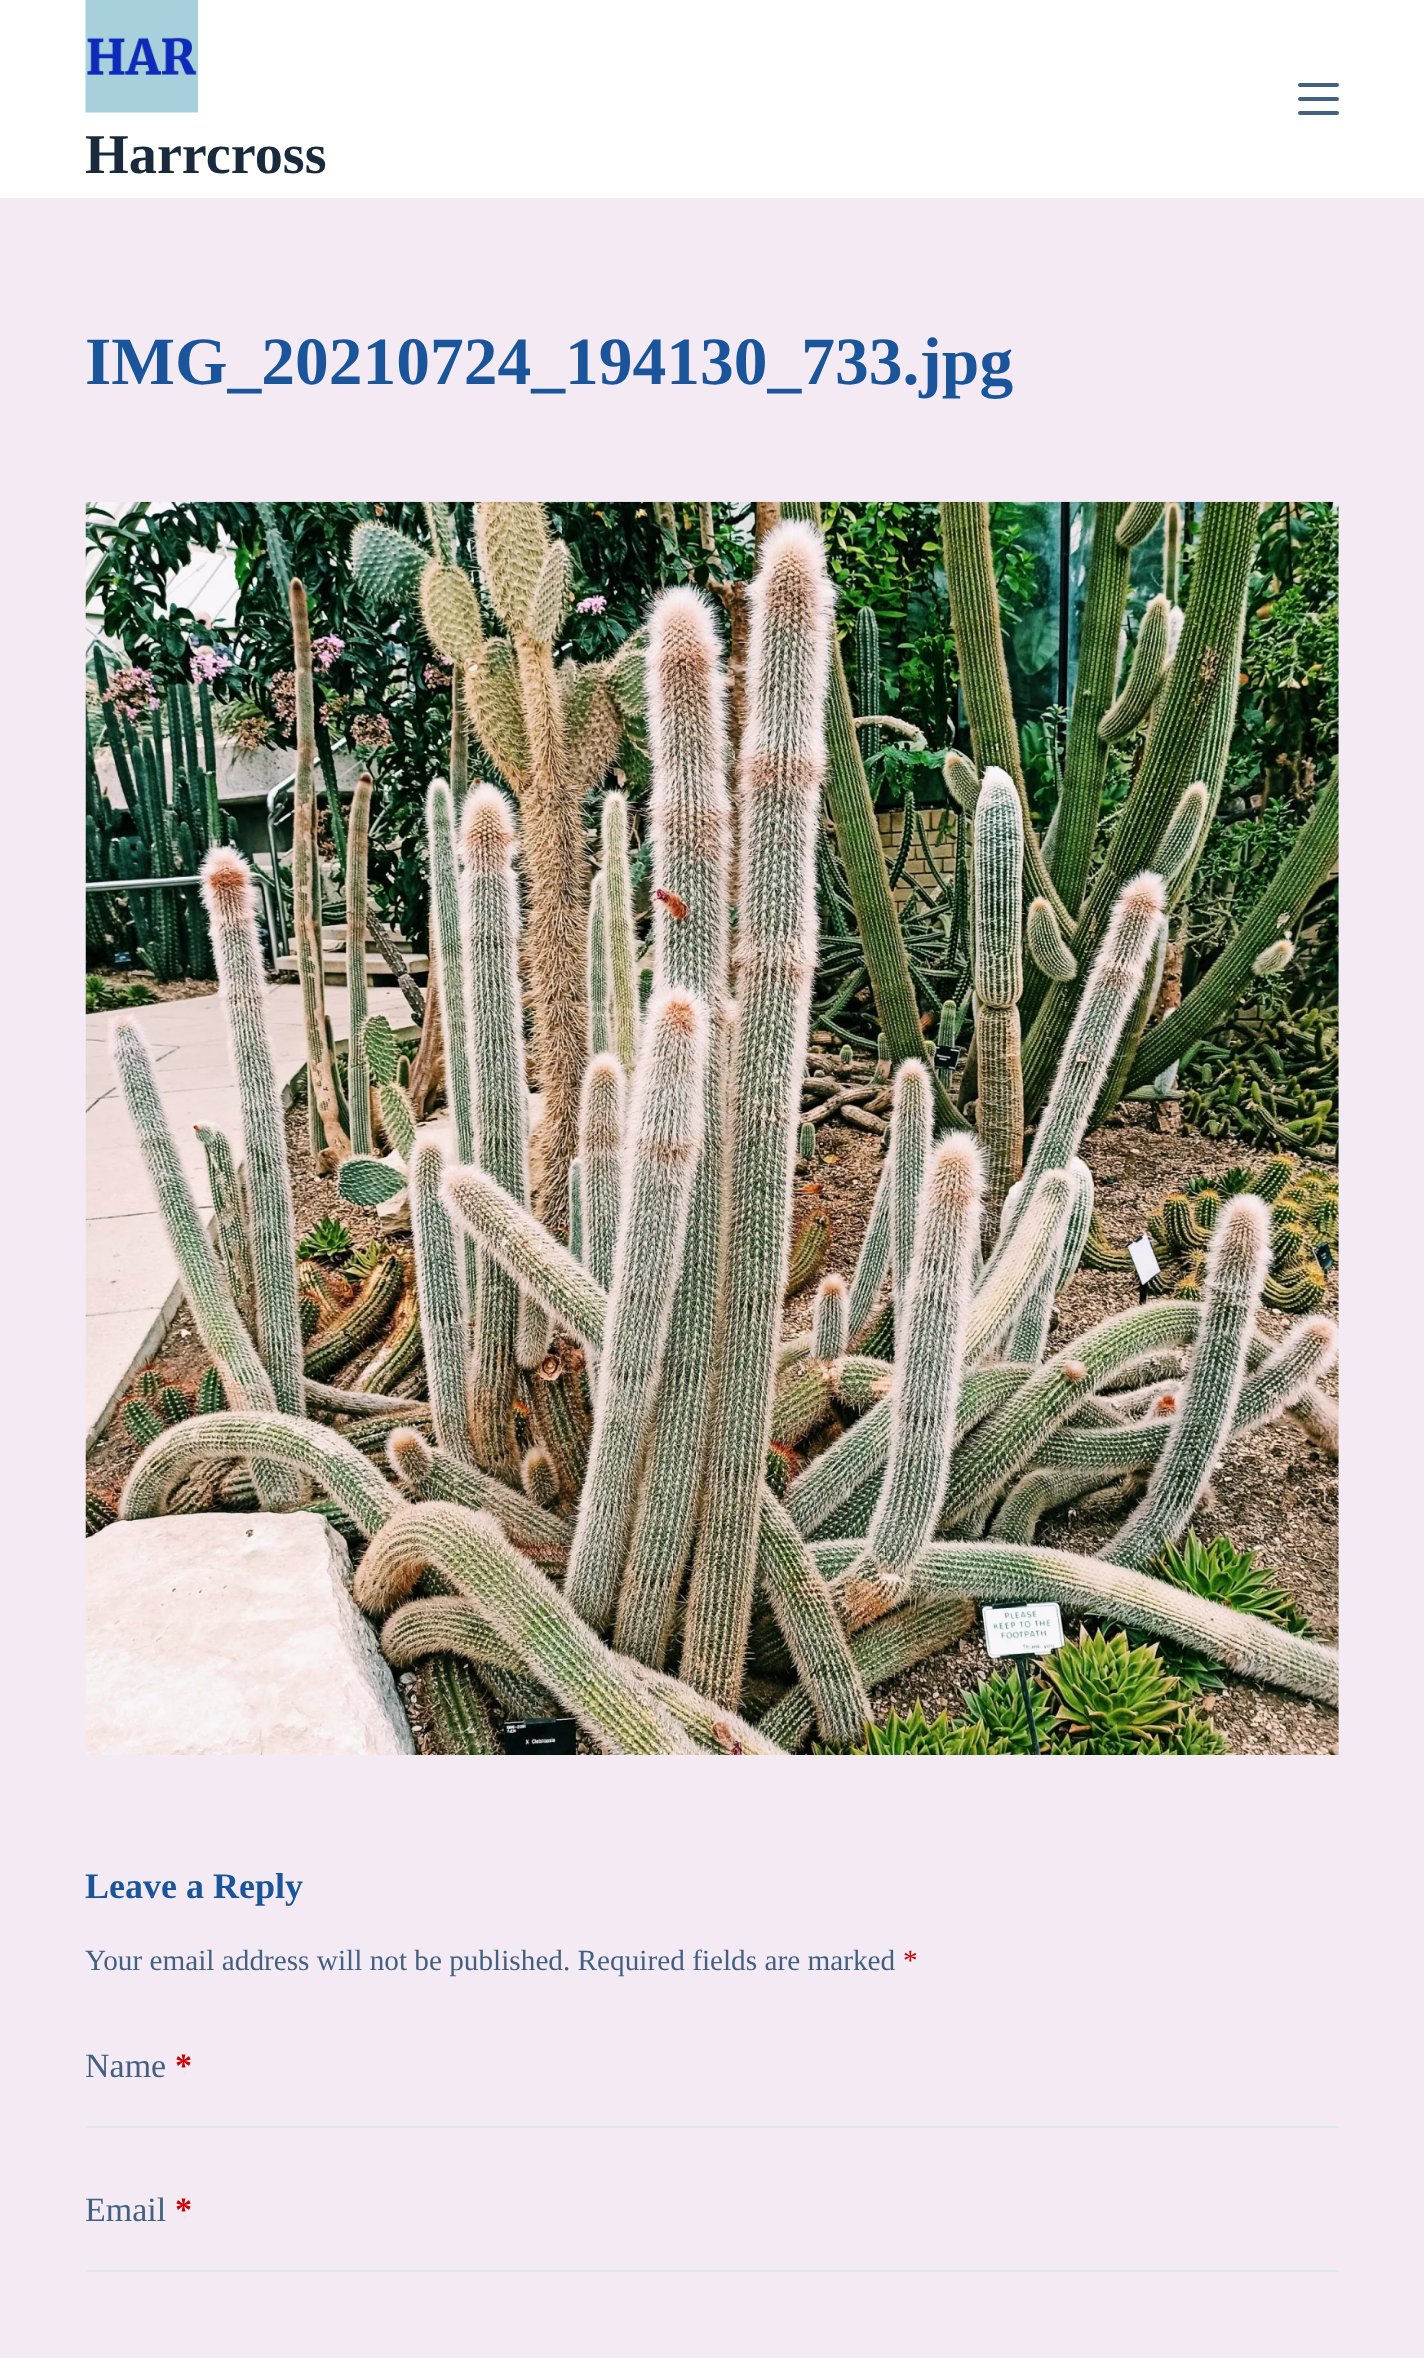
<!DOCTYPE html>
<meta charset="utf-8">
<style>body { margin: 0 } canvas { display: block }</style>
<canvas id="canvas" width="1424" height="2358"></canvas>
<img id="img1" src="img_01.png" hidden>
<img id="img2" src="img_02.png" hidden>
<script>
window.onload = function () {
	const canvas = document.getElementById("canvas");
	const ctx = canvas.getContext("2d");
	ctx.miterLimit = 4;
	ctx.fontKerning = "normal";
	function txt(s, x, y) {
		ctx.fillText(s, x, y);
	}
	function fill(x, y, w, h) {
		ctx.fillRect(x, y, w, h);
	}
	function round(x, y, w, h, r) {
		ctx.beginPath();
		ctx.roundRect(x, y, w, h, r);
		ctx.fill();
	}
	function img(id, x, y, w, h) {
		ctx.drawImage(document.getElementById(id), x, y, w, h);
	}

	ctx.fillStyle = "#F4EAF3";
	fill(0, 0, 1424, 2358);
	ctx.fillStyle = "#FFFFFF";
	fill(0, 0, 1424, 198);
	ctx.fillStyle = "#426182";
	round(1298, 83, 41, 4, 2);
	round(1298, 97, 41, 4, 2);
	round(1298, 111, 41, 4, 2);
	img("img1", 85, 0, 113, 113);
	img("img2", 85, 501, 1254, 1254);
	ctx.fillStyle = "#E1E8ED";
	fill(86, 2126, 1253, 2);
	fill(86, 2270, 1253, 2);
	ctx.font = "bold 56.25px Liberation Serif";
	ctx.fillStyle = "#192A3D";
	txt("Harrcross", 85, 173);
	ctx.font = "bold 67.5px Liberation Serif";
	ctx.fillStyle = "#1A549B";
	txt("IMG_20210724_194130_733.jpg", 85, 384);
	ctx.font = "bold 36px Liberation Serif";
	txt("Leave a Reply", 85, 1898);
	ctx.font = "29.25px Liberation Serif";
	ctx.fillStyle = "#426182";
	txt("Your email address will not be published. Required fields are marked", 85, 1970);
	ctx.fillStyle = "#CC0000";
	txt("*", 903, 1970);
	ctx.font = "34px Liberation Serif";
	ctx.fillStyle = "#426182";
	txt("Name", 85, 2077);
	ctx.font = "bold 34px Liberation Serif";
	ctx.fillStyle = "#CC0000";
	txt("*", 175, 2077);
	ctx.font = "34px Liberation Serif";
	ctx.fillStyle = "#426182";
	txt("Email", 85, 2221);
	ctx.font = "bold 34px Liberation Serif";
	ctx.fillStyle = "#CC0000";
	txt("*", 175, 2221);
};
</script>
